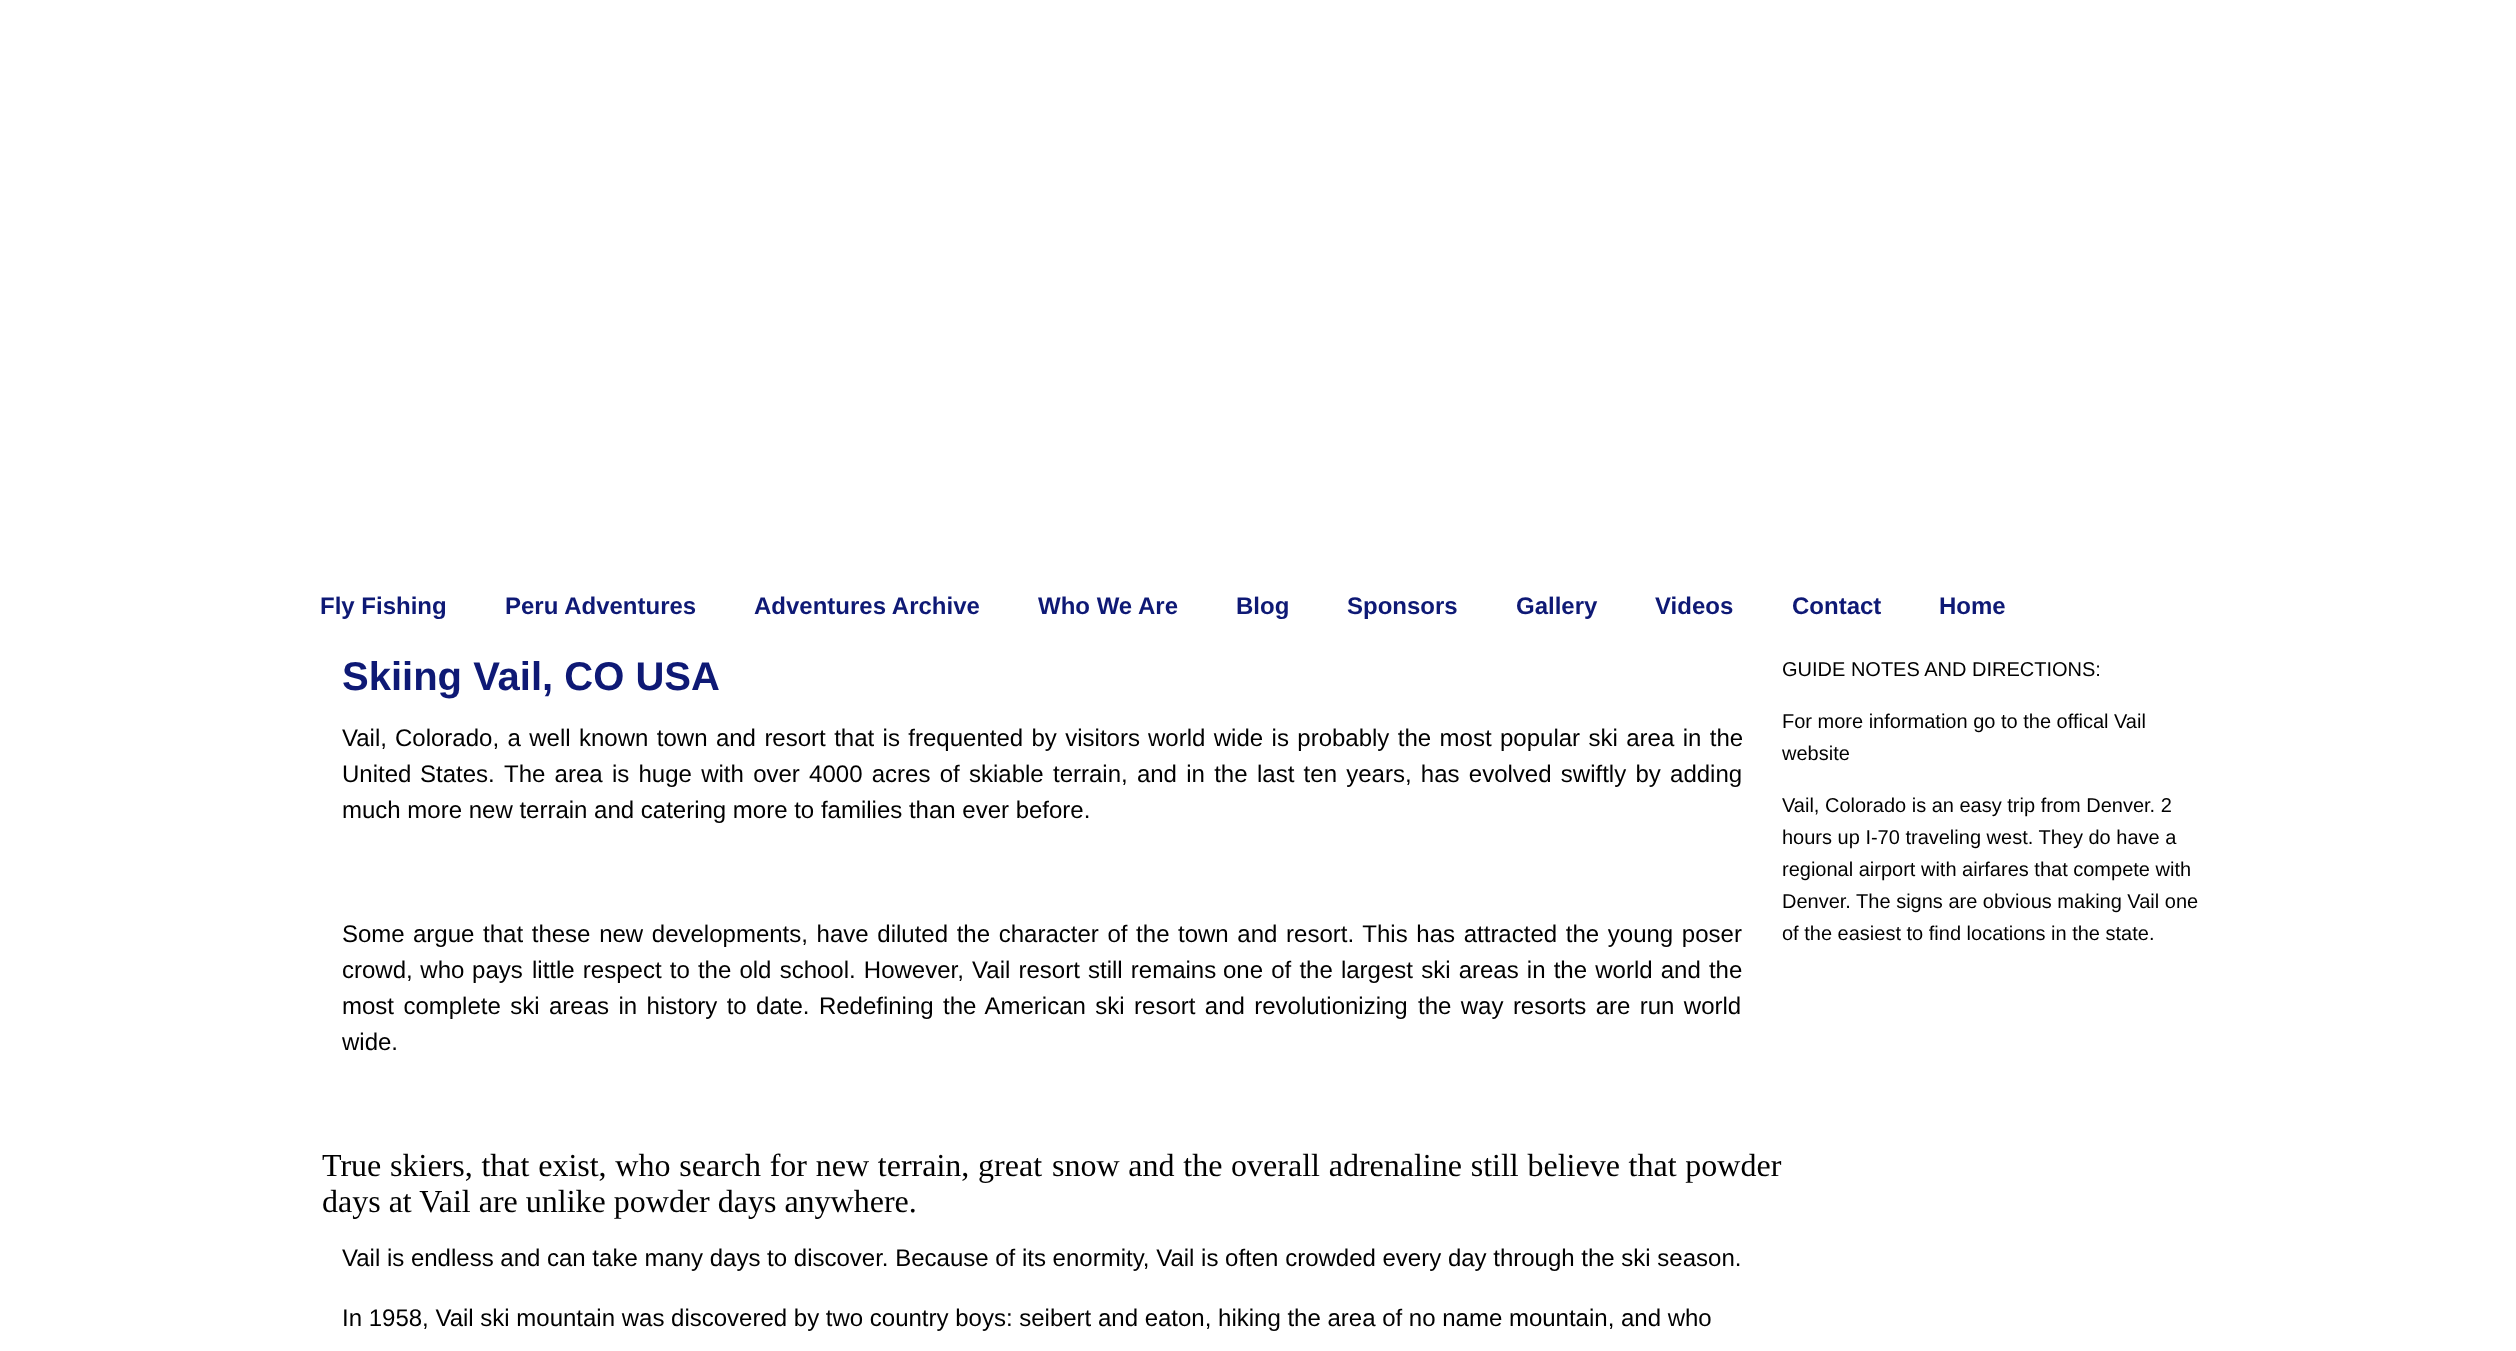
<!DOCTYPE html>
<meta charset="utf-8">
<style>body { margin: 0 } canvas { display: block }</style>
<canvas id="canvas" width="2516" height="1351"></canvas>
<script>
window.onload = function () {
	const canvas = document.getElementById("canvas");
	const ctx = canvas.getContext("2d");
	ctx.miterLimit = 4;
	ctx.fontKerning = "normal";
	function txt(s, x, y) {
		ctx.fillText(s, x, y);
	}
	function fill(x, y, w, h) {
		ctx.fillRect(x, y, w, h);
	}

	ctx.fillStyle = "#FFFFFF";
	fill(0, 0, 2516, 1351);
	ctx.font = "bold 24px Liberation Sans";
	ctx.fillStyle = "#0E1975";
	txt("Fly Fishing", 320, 614);
	txt("Peru Adventures", 505, 614);
	txt("Adventures Archive", 754, 614);
	txt("Who We Are", 1038, 614);
	txt("Blog", 1236, 614);
	txt("Sponsors", 1347, 614);
	txt("Gallery", 1516, 614);
	txt("Videos", 1655, 614);
	txt("Contact", 1792, 614);
	txt("Home", 1939, 614);
	ctx.font = "bold 40px Liberation Sans";
	txt("Skiing Vail, CO USA", 342, 690);
	ctx.font = "24px Liberation Sans";
	ctx.fillStyle = "#000000";
	txt("Vail,", 342, 746);
	ctx.wordSpacing = "1.75px";
	txt("Colorado, a well known town and resort that is frequented by visitors", 395, 746);
	txt("world wide is probably the most popular ski area in the", 1148, 746);
	ctx.wordSpacing = "2px";
	txt("United States.", 342, 782);
	ctx.wordSpacing = "2.6px";
	txt("The area is huge with over 4000 acres of skiable terrain, and in the", 504, 782);
	txt("last ten years, has evolved swiftly by adding", 1257, 782);
	ctx.wordSpacing = "0px";
	txt("much more new terrain and catering more to families than ever before.", 342, 818);
	txt("Some", 342, 942);
	ctx.wordSpacing = "2px";
	txt("argue that these new developments, have diluted the character of the", 413, 942);
	txt("town and resort. This has attracted the young poser", 1178, 942);
	ctx.wordSpacing = "1px";
	txt("crowd, who pays", 342, 978);
	ctx.wordSpacing = "1.5px";
	txt("little respect to the old school. However, Vail resort still remains", 532, 978);
	txt("one of the largest ski areas in the world and the", 1223, 978);
	ctx.wordSpacing = "2.75px";
	txt("most complete ski", 342, 1014);
	txt("areas in history to date. Redefining the American ski resort and revolutionizing", 549, 1014);
	txt("the way resorts are run world", 1418, 1014);
	ctx.wordSpacing = "0px";
	txt("wide.", 342, 1050);
	ctx.wordSpacing = "0.75px";
	ctx.font = "32px Liberation Serif";
	txt("True skiers, that exist, who search for new terrain, great", 322, 1176);
	txt("snow and the overall adrenaline still believe that powder", 1052, 1176);
	ctx.wordSpacing = "0px";
	txt("days at Vail are unlike powder days anywhere.", 322, 1212);
	ctx.font = "24px Liberation Sans";
	txt("Vail is endless and can take many days to discover. Because of its enormity, Vail is often crowded every day through the ski season.", 342, 1266);
	txt("In 1958, Vail ski mountain was discovered by two country boys: seibert and eaton, hiking the area of no name mountain, and who", 342, 1326);
	ctx.font = "20px Liberation Sans";
	txt("GUIDE NOTES AND DIRECTIONS:", 1782, 676);
	txt("For more information go to the offical Vail", 1782, 728);
	txt("website", 1782, 760);
	txt("Vail, Colorado is an easy trip from Denver. 2", 1782, 812);
	txt("hours up I-70 traveling west. They do have a", 1782, 844);
	txt("regional airport with airfares that compete with", 1782, 876);
	txt("Denver. The signs are obvious making Vail one", 1782, 908);
	txt("of the easiest to find locations in the state.", 1782, 940);
};
</script>
